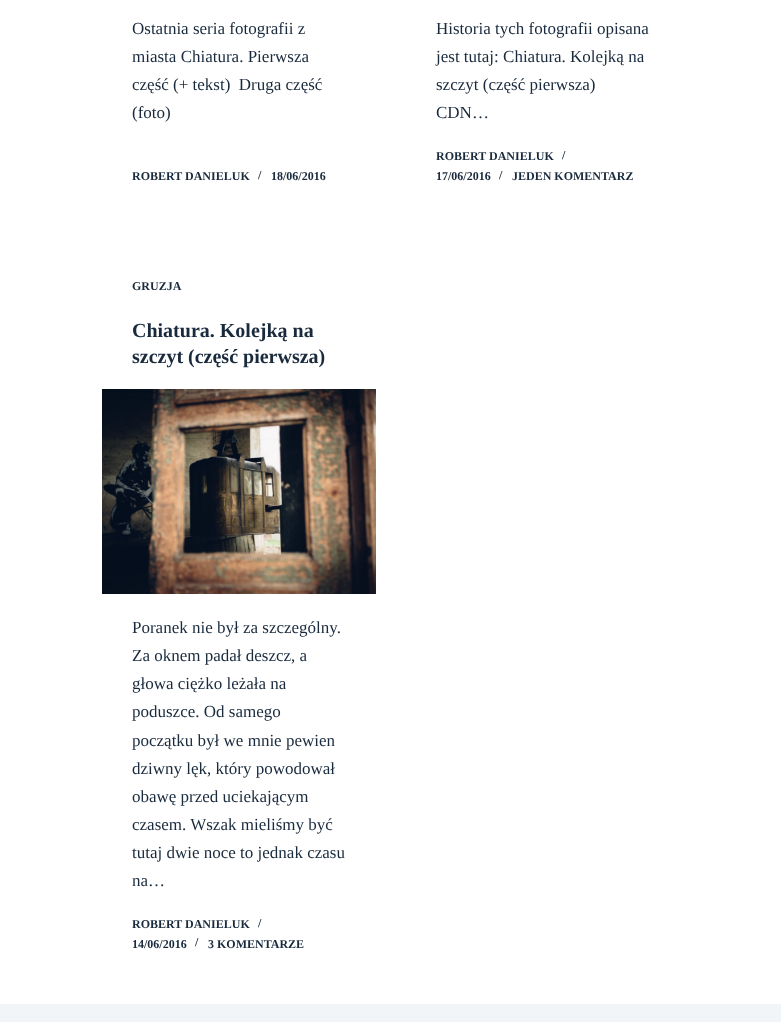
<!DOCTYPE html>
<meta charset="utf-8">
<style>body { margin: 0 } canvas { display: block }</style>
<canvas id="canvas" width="781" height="1022"></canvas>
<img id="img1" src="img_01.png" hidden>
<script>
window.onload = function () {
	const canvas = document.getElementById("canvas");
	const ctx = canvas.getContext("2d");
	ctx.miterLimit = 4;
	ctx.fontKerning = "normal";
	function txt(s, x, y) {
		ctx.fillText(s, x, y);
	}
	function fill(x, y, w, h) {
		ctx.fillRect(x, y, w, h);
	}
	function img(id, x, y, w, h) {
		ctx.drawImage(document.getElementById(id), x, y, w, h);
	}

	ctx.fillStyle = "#FFFFFF";
	fill(0, 0, 781, 1022);
	img("img1", 102, 389, 274, 205);
	ctx.fillStyle = "#F2F5F7";
	fill(0, 1004, 781, 18);
	ctx.font = "17px Liberation Serif";
	ctx.fillStyle = "#192A3D";
	txt("Ostatnia seria fotografii z", 132, 34);
	txt("miasta Chiatura. Pierwsza", 132, 62);
	txt("część (+ tekst)  Druga część", 132, 90);
	txt("(foto)", 132, 118);
	ctx.font = "bold 12px Liberation Serif";
	txt("ROBERT DANIELUK", 132, 180);
	txt("/", 258, 179);
	txt("18/06/2016", 271, 180);
	ctx.font = "17px Liberation Serif";
	txt("Historia tych fotografii opisana", 436, 34);
	txt("jest tutaj: Chiatura. Kolejką na", 436, 62);
	txt("szczyt (część pierwsza)", 436, 90);
	txt("CDN…", 436, 118);
	ctx.font = "bold 12px Liberation Serif";
	txt("ROBERT DANIELUK", 436, 160);
	txt("/", 562, 159);
	txt("17/06/2016", 436, 180);
	txt("/", 499, 179);
	txt("JEDEN KOMENTARZ", 512, 180);
	txt("GRUZJA", 132, 290);
	ctx.font = "bold 20px Liberation Serif";
	txt("Chiatura. Kolejką na", 132, 337);
	txt("szczyt (część pierwsza)", 132, 363);
	ctx.font = "17px Liberation Serif";
	txt("Poranek nie był za szczególny.", 132, 633);
	txt("Za oknem padał deszcz, a", 132, 661);
	txt("głowa ciężko leżała na", 132, 689);
	txt("poduszce. Od samego", 132, 717);
	txt("początku był we mnie pewien", 132, 746);
	txt("dziwny lęk, który powodował", 132, 774);
	txt("obawę przed uciekającym", 132, 802);
	txt("czasem. Wszak mieliśmy być", 132, 830);
	txt("tutaj dwie noce to jednak czasu", 132, 858);
	txt("na…", 132, 886);
	ctx.font = "bold 12px Liberation Serif";
	txt("ROBERT DANIELUK", 132, 928);
	txt("/", 258, 927);
	txt("14/06/2016", 132, 948);
	txt("/", 195, 946);
	txt("3 KOMENTARZE", 208, 948);
};
</script>
